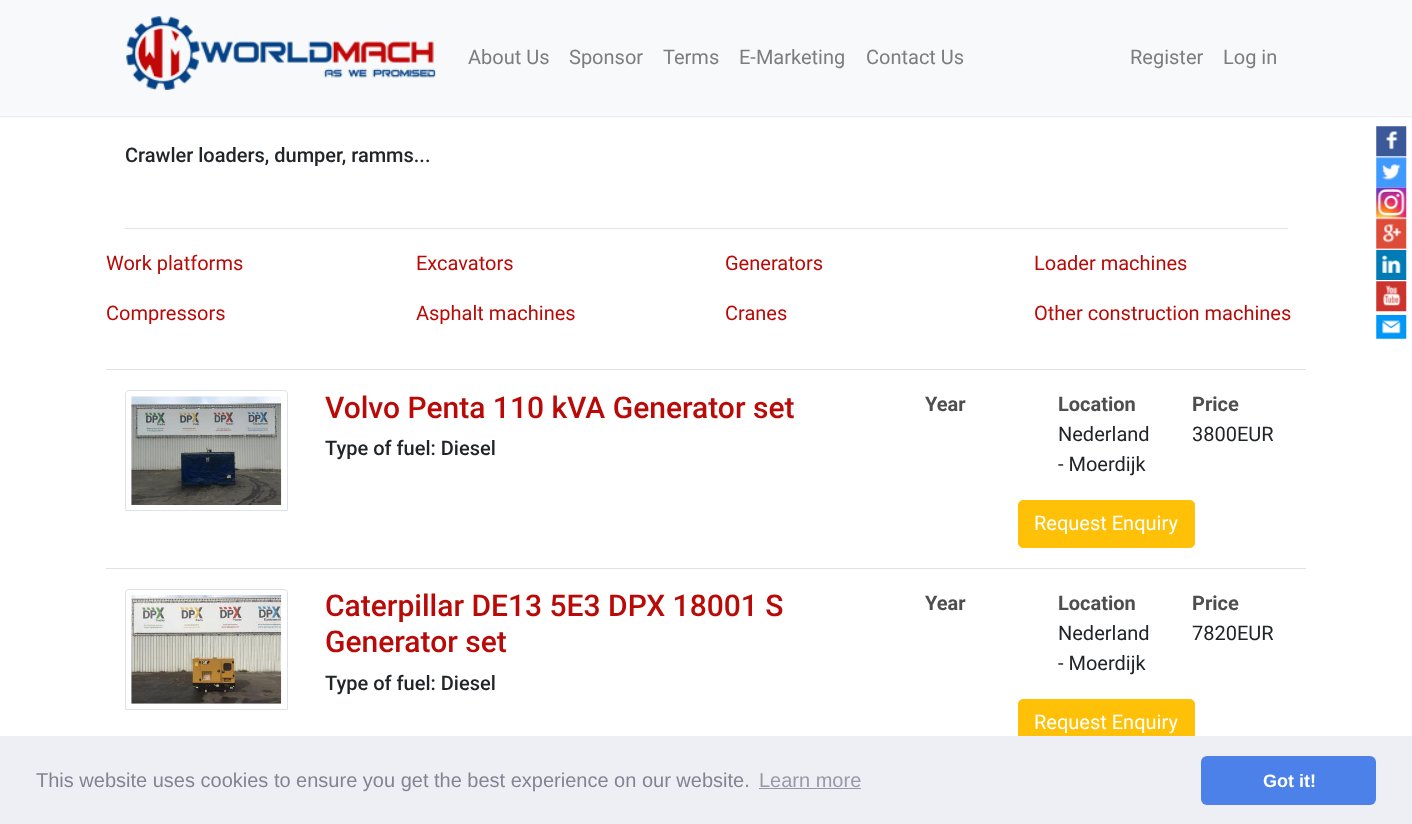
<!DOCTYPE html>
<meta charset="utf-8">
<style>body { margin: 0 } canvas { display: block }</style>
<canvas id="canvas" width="1412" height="824"></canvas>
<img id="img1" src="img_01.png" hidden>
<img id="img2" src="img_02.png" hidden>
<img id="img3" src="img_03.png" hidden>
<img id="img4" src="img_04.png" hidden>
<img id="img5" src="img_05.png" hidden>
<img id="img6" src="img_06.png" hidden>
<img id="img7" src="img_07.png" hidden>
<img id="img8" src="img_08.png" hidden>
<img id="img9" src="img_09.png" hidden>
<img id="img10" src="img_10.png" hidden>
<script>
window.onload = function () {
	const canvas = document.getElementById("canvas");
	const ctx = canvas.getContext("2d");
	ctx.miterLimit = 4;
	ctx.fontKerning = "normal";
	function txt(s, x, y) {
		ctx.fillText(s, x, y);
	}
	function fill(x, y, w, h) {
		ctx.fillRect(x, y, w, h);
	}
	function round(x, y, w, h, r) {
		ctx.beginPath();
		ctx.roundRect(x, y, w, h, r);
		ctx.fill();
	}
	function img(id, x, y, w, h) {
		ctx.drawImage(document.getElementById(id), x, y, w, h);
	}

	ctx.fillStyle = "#FFFFFF";
	fill(0, 0, 1412, 824);
	ctx.fillStyle = "#F8F9FA";
	fill(0, 0, 1412, 118);
	ctx.fillStyle = "#EEEEEE";
	fill(0, 116, 1412, 1);
	img("img1", 126, 16, 310, 74);
	img("img2", 1376, 126, 31, 31);
	img("img3", 1376, 157, 31, 32);
	img("img4", 1376, 187, 31, 31);
	img("img5", 1376, 218, 31, 32);
	img("img6", 1376, 250, 31, 30);
	img("img7", 1376, 281, 31, 31);
	img("img8", 1376, 315, 31, 24);
	ctx.fillStyle = "#E6E6E6";
	fill(125, 228, 1163, 1);
	ctx.fillStyle = "#DEE2E6";
	fill(106, 369, 1200, 1);
	ctx.beginPath();
	ctx.roundRect(125.5, 390.5, 162, 120, [3.5, 3.5, 0, 0]);
	ctx.strokeStyle = "#DEE2E6";
	ctx.stroke();
	img("img9", 131, 396, 151, 109);
	ctx.fillStyle = "#FFC107";
	ctx.beginPath();
	ctx.roundRect(1018.5, 500.5, 176, 47, 4.5);
	ctx.fill();
	ctx.strokeStyle = "#FFC107";
	ctx.stroke();
	ctx.fillStyle = "#DEE2E6";
	fill(106, 568, 1200, 1);
	ctx.beginPath();
	ctx.roundRect(125.5, 589.5, 162, 120, [3.5, 3.5, 0, 0]);
	ctx.strokeStyle = "#DEE2E6";
	ctx.stroke();
	img("img10", 131, 595, 151, 109);
	ctx.fillStyle = "#FFC107";
	ctx.beginPath();
	ctx.roundRect(1018.5, 699.5, 176, 46, 4.5);
	ctx.fill();
	ctx.strokeStyle = "#FFC107";
	ctx.stroke();
	ctx.fillStyle = "#EDEFF5";
	fill(0, 736, 1412, 88);
	ctx.fillStyle = "#9899A5";
	fill(759, 788, 102, 1);
	ctx.fillStyle = "#4B81E8";
	round(1201, 756, 175, 49, 6);
	ctx.font = "20px Roboto";
	ctx.fillStyle = "#7C7D7D";
	txt("About Us", 468, 64);
	txt("Sponsor", 569, 64);
	txt("Terms", 663, 64);
	txt("E-Marketing", 739, 64);
	txt("Contact Us", 866, 64);
	txt("Register", 1130, 64);
	txt("Log in", 1223, 64);
	ctx.font = "500 20px Roboto";
	ctx.fillStyle = "#212529";
	txt("Crawler loaders, dumper, ramms...", 125, 162);
	ctx.font = "20px Roboto";
	ctx.fillStyle = "#B90A07";
	txt("Work platforms", 106, 270);
	txt("Excavators", 416, 270);
	txt("Generators", 725, 270);
	txt("Loader machines", 1034, 270);
	txt("Compressors", 106, 320);
	txt("Asphalt machines", 416, 320);
	txt("Cranes", 725, 320);
	txt("Other construction machines", 1034, 320);
	ctx.font = "500 30px Roboto";
	txt("Volvo Penta 110 kVA Generator set", 325, 418);
	ctx.font = "500 20px Roboto";
	ctx.fillStyle = "#212529";
	txt("Type of fuel: Diesel", 325, 455);
	ctx.font = "bold 20px Roboto";
	ctx.fillStyle = "#4E4E4E";
	txt("Year", 925, 411);
	txt("Location", 1058, 411);
	ctx.font = "20px Roboto";
	ctx.fillStyle = "#212529";
	txt("Nederland", 1058, 441);
	txt("- Moerdijk", 1058, 471);
	ctx.font = "bold 20px Roboto";
	ctx.fillStyle = "#4E4E4E";
	txt("Price", 1192, 411);
	ctx.font = "20px Roboto";
	ctx.fillStyle = "#212529";
	txt("3800EUR", 1192, 441);
	ctx.fillStyle = "#FFFFFF";
	txt("Request Enquiry", 1034, 530);
	ctx.font = "500 30px Roboto";
	ctx.fillStyle = "#B90A07";
	txt("Caterpillar DE13 5E3 DPX 18001 S", 325, 616);
	txt("Generator set", 325, 652);
	ctx.font = "500 20px Roboto";
	ctx.fillStyle = "#212529";
	txt("Type of fuel: Diesel", 325, 690);
	ctx.font = "bold 20px Roboto";
	ctx.fillStyle = "#4E4E4E";
	txt("Year", 925, 610);
	txt("Location", 1058, 610);
	ctx.font = "20px Roboto";
	ctx.fillStyle = "#212529";
	txt("Nederland", 1058, 640);
	txt("- Moerdijk", 1058, 670);
	ctx.font = "bold 20px Roboto";
	ctx.fillStyle = "#4E4E4E";
	txt("Price", 1192, 610);
	ctx.font = "20px Roboto";
	ctx.fillStyle = "#212529";
	txt("7820EUR", 1192, 640);
	ctx.fillStyle = "#FFFFFF";
	txt("Request Enquiry", 1034, 729);
	ctx.font = "20px Liberation Sans";
	ctx.fillStyle = "#838391";
	txt("This website uses cookies to ensure you get the best experience on our website.", 36, 787);
	ctx.fillStyle = "#9899A5";
	txt("Learn more", 759, 787);
	ctx.font = "bold 18px Liberation Sans";
	ctx.fillStyle = "#FFFFFF";
	txt("Got it!", 1263, 787);
};
</script>
